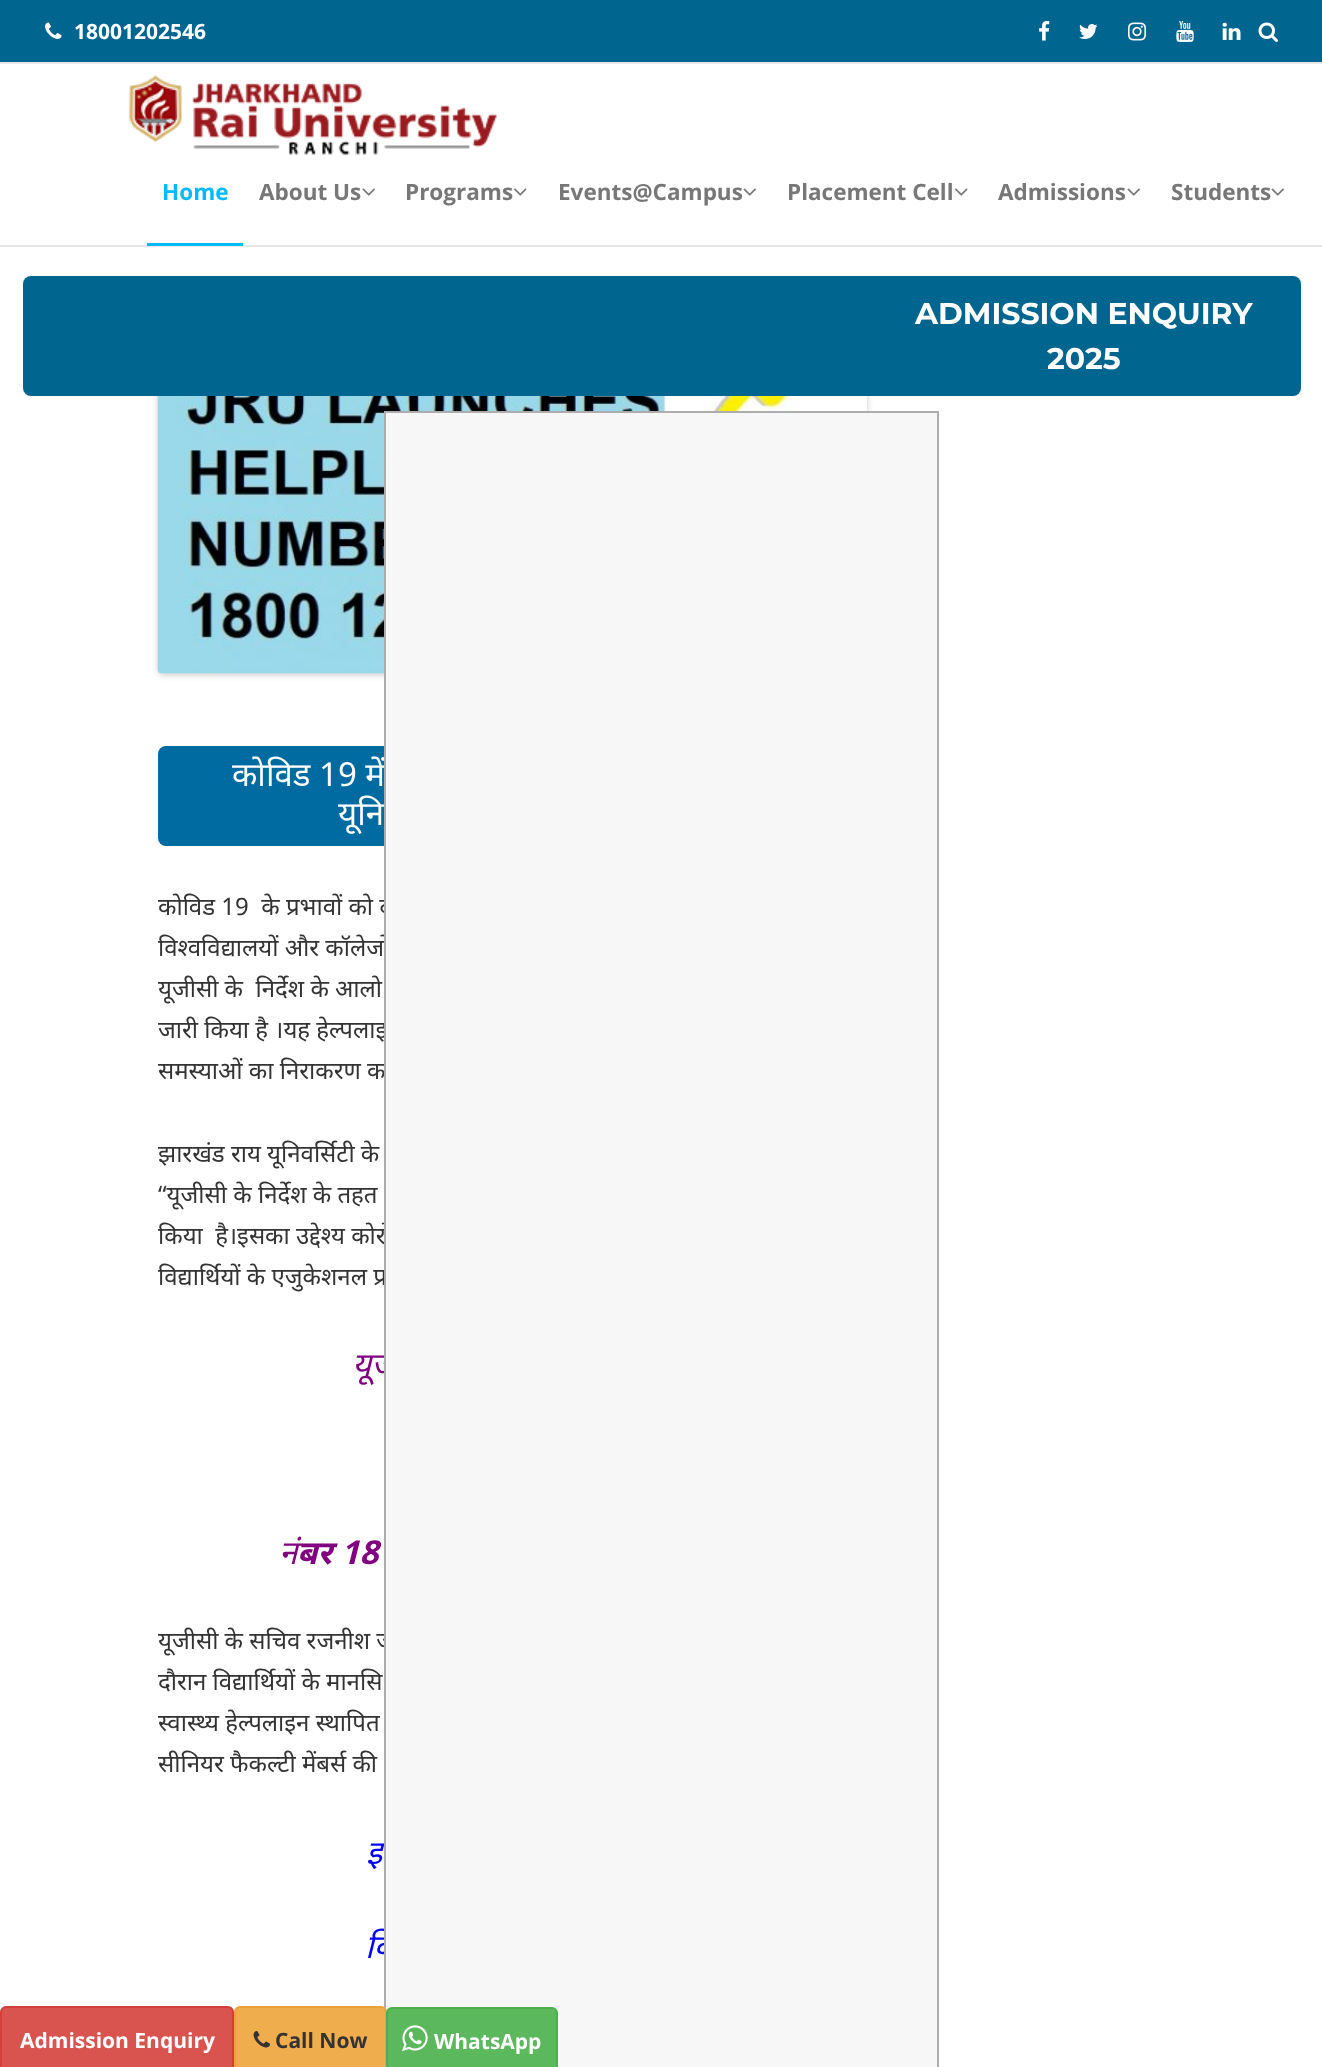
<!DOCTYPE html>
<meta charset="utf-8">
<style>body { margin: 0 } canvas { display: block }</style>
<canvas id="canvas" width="1322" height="2067"></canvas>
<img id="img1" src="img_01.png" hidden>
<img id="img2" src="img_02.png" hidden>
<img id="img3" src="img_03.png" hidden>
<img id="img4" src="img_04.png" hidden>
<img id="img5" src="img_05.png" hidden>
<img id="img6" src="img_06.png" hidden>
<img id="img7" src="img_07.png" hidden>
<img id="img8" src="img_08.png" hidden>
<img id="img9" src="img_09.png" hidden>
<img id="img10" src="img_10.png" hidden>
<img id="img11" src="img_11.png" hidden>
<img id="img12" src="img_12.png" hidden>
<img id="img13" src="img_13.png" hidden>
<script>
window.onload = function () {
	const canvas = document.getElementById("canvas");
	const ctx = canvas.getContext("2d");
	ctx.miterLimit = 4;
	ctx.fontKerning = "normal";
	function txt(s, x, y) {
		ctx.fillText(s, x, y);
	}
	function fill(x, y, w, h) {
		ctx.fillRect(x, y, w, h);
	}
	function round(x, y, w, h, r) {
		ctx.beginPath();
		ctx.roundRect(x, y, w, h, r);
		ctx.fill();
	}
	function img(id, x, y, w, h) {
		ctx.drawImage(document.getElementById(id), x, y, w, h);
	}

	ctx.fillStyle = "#FFFFFF";
	fill(0, 0, 1322, 2067);
	ctx.fillStyle = "#006690";
	fill(0, 0, 1322, 62);
	img("img1", 45, 22, 17, 17);
	img("img2", 1039, 21, 11, 20);
	img("img3", 1079, 24, 19, 15);
	img("img4", 1128, 22, 18, 19);
	img("img5", 1176, 21, 18, 21);
	img("img6", 1222, 22, 19, 18);
	img("img7", 1258, 22, 20, 20);
	ctx.fillStyle = "#E7E7E7";
	fill(0, 62, 1322, 2);
	fill(0, 245, 1322, 2);
	img("img8", 128, 74, 369, 81);
	ctx.fillStyle = "#01BAFD";
	fill(147, 243, 96, 3);
	img("img9", 362, 188, 13, 8);
	img("img10", 514, 188, 13, 8);
	img("img9", 743, 188, 13, 8);
	img("img10", 955, 188, 13, 8);
	img("img9", 1127, 188, 13, 8);
	img("img9", 1271, 188, 13, 8);
	ctx.fillStyle = "rgba(0, 0, 0, 0.2)";
	ctx.filter = "blur(3px)";
	ctx.beginPath();
	ctx.roundRect(158, 288, 709, 387, 5);
	ctx.fill();
	ctx.filter = "none";
	ctx.fillStyle = "#006690";
	round(23, 276, 1278, 120, 8);
	img("img11", 157, 396, 710, 278);
	ctx.fillStyle = "#006BA1";
	round(158, 746, 709, 100, 8);
	ctx.fillStyle = "#D9534F";
	ctx.beginPath();
	ctx.roundRect(1, 2007, 232, 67, 5);
	ctx.fill();
	ctx.strokeStyle = "#D43F3A";
	ctx.lineWidth = 2;
	ctx.stroke();
	ctx.font = "bold 21px Open Sans";
	ctx.fillStyle = "#FFFFFF";
	txt("18001202546", 74, 39);
	ctx.font = "bold 22.5px Open Sans";
	ctx.fillStyle = "#01BAFD";
	txt("Home", 162, 200);
	ctx.fillStyle = "#777777";
	txt("About Us", 259, 200);
	txt("Programs", 405, 200);
	txt("Events@Campus", 558, 200);
	txt("Placement Cell", 787, 200);
	txt("Admissions", 998, 200);
	txt("Students", 1171, 200);
	ctx.font = "bold 30px Montserrat";
	ctx.fillStyle = "#FFFFFF";
	txt("ADMISSION ENQUIRY", 915, 324);
	txt("2025", 1047, 369);
	ctx.font = "33px Noto Sans";
	txt("कोविड 19 में", 232, 786);
	ctx.wordSpacing = "1px";
	txt("यूनि", 338, 825);
	ctx.wordSpacing = "0px";
	ctx.font = "24px Noto Sans";
	ctx.fillStyle = "#333333";
	txt("कोविड 19  के प्रभावों को द", 158, 915);
	txt("विश्वविद्यालयों और कॉलेजों", 158, 956);
	txt("यूजीसी के  निर्देश के आलो", 158, 997);
	txt("जारी किया है ।यह हेल्पलाइ", 158, 1038);
	txt("समस्याओं का निराकरण क", 158, 1079);
	txt("झारखंड राय यूनिवर्सिटी के", 158, 1162);
	txt("“यूजीसी के निर्देश के तहत", 158, 1203);
	txt("किया  है।इसका उद्देश्य कोरो", 158, 1244);
	txt("विद्यार्थियों के एजुकेशनल प्रॉ", 158, 1285);
	ctx.wordSpacing = "1px";
	ctx.font = "italic 33px Noto Sans";
	ctx.fillStyle = "#800080";
	txt("यूज", 352, 1376);
	ctx.wordSpacing = "0px";
	txt("नं", 279, 1564);
	ctx.font = "italic bold 33px Noto Sans";
	txt("बर 18", 297, 1564);
	ctx.font = "24px Noto Sans";
	ctx.fillStyle = "#333333";
	txt("यूजीसी के सचिव रजनीश ज", 158, 1649);
	txt("दौरान विद्यार्थियों के मानसि", 158, 1690);
	txt("स्वास्थ्य हेल्पलाइन स्थापित", 158, 1731);
	txt("सीनियर फैकल्टी मेंबर्स की", 158, 1772);
	ctx.wordSpacing = "1px";
	ctx.font = "italic 33px Noto Sans";
	ctx.fillStyle = "#0000FF";
	txt("इ", 366, 1864);
	txt("वि", 365, 1958);
	ctx.fillStyle = "#F7F7F7";
	ctx.beginPath();
	ctx.rect(385, 412, 553, 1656);
	ctx.fill();
	ctx.strokeStyle = "#ADADAD";
	ctx.stroke();
	ctx.wordSpacing = "0px";
	ctx.font = "bold 21px Open Sans";
	ctx.fillStyle = "#FFFFFF";
	txt("Admission Enquiry", 20, 2048);
	ctx.fillStyle = "#F0AD4E";
	ctx.beginPath();
	ctx.roundRect(235, 2007, 151, 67, 5);
	ctx.fill();
	ctx.strokeStyle = "#EEA236";
	ctx.stroke();
	img("img12", 253, 2031, 17, 17);
	ctx.fillStyle = "#333333";
	txt("Call Now", 275, 2048);
	ctx.fillStyle = "#5CB85C";
	ctx.beginPath();
	ctx.roundRect(387, 2008, 170, 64, 5);
	ctx.fill();
	ctx.strokeStyle = "#4CAE4C";
	ctx.stroke();
	img("img13", 402, 2025, 26, 27);
	ctx.fillStyle = "#FFFFFF";
	txt("WhatsApp", 434, 2049);
};
</script>
